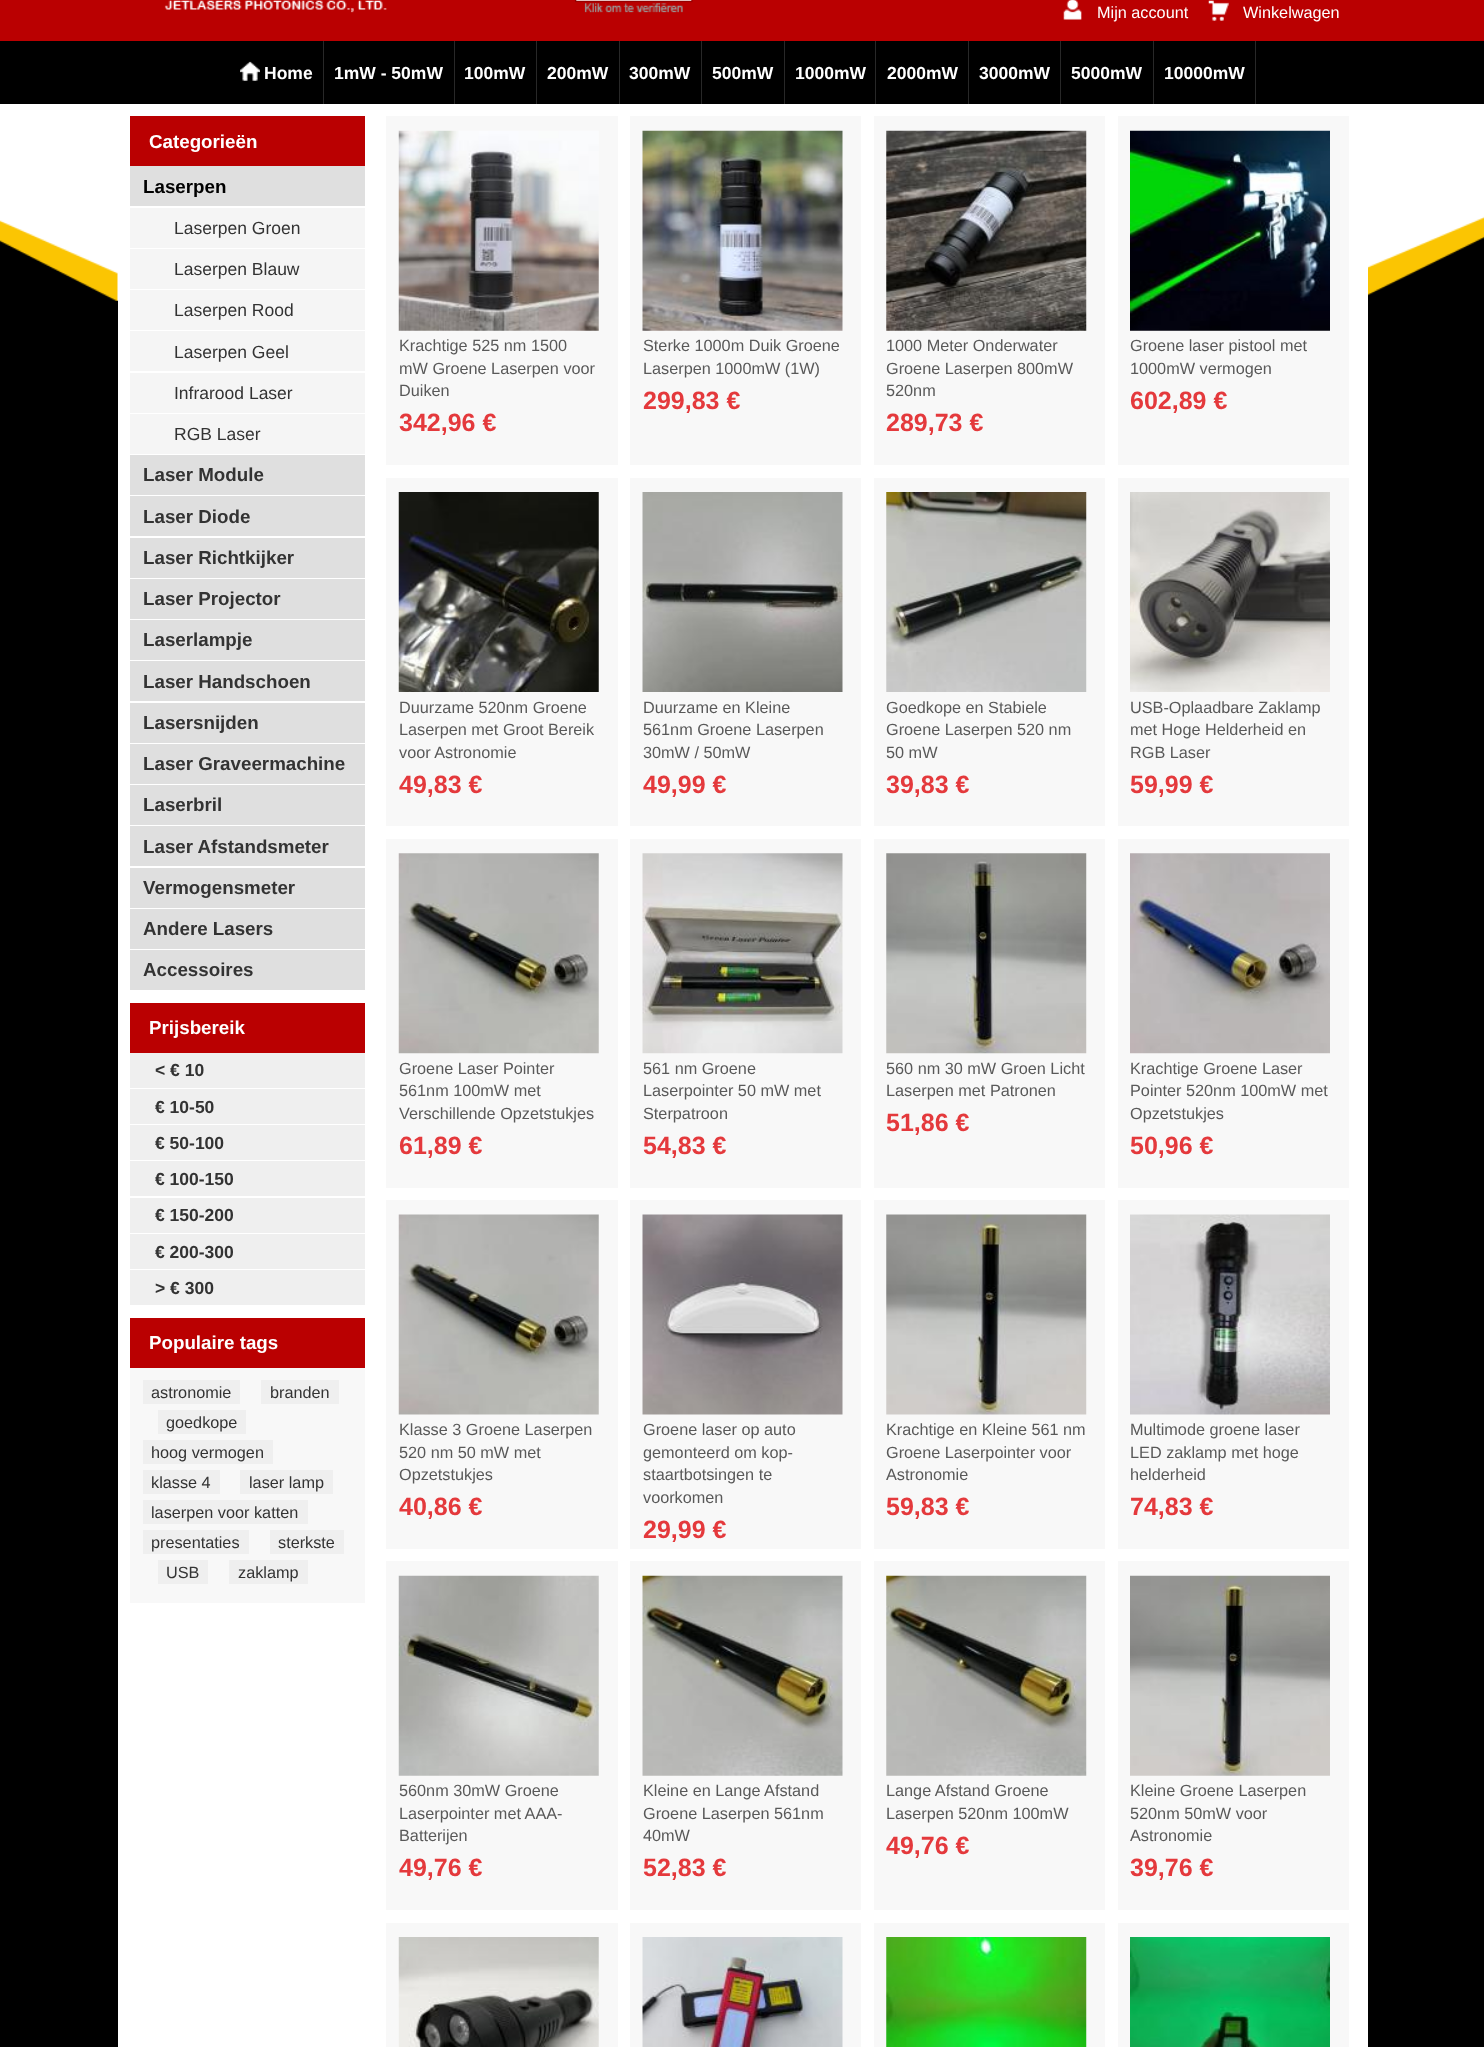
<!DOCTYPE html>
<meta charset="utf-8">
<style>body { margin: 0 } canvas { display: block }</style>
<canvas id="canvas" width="1484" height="2047"></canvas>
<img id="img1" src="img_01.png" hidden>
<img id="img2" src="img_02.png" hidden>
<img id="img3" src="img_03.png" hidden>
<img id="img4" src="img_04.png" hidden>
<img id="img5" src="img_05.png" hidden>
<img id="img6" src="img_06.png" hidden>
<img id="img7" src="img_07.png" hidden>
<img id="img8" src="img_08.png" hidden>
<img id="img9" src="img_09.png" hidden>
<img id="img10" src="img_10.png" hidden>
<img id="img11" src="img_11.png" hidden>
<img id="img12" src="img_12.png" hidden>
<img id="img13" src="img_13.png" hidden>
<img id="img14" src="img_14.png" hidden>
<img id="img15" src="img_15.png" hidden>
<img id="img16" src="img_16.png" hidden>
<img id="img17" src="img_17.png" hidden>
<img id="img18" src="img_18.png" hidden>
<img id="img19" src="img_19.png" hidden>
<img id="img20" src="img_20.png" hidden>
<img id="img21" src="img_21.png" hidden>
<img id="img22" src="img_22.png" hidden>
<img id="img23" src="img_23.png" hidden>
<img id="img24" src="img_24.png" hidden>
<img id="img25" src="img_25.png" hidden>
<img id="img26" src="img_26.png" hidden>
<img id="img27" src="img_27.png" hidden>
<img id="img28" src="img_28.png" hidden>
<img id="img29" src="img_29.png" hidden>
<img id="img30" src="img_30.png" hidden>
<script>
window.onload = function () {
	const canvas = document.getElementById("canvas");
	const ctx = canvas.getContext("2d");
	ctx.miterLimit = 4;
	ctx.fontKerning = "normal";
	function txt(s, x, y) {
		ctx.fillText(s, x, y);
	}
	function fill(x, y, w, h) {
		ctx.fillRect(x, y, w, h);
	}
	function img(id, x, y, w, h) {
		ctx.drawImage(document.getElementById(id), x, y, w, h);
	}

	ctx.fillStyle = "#000000";
	fill(0, 0, 1484, 2047);
	img("img1", 0, 104, 1484, 197);
	ctx.fillStyle = "#BA0001";
	fill(0, 0, 1484, 41);
	img("img2", 164, 0, 223, 13);
	img("img3", 575, 0, 118, 13);
	img("img4", 1063, 0, 19, 20);
	img("img5", 1208, 0, 21, 21);
	ctx.fillStyle = "#282828";
	fill(323, 41, 1, 63);
	img("img6", 240, 61, 20, 20);
	fill(454, 41, 1, 63);
	fill(536, 41, 1, 63);
	fill(619, 41, 1, 63);
	fill(701, 41, 1, 63);
	fill(784, 41, 1, 63);
	fill(875, 41, 1, 63);
	fill(968, 41, 1, 63);
	fill(1060, 41, 1, 63);
	fill(1153, 41, 1, 63);
	fill(1255, 41, 1, 63);
	ctx.fillStyle = "#FFFFFF";
	fill(118, 266, 1250, 1781);
	ctx.fillStyle = "#BA0001";
	fill(130, 116, 235, 50);
	ctx.fillStyle = "#DFDFDF";
	fill(130, 166, 235, 40);
	ctx.fillStyle = "#F5F5F5";
	fill(130, 208, 235, 40);
	fill(130, 249, 235, 40);
	fill(130, 290, 235, 40);
	fill(130, 331, 235, 40);
	fill(130, 373, 235, 40);
	fill(130, 414, 235, 40);
	ctx.fillStyle = "#DFDFDF";
	fill(130, 455, 235, 40);
	fill(130, 496, 235, 40);
	fill(130, 538, 235, 40);
	fill(130, 579, 235, 40);
	fill(130, 620, 235, 40);
	fill(130, 661, 235, 40);
	fill(130, 703, 235, 40);
	fill(130, 744, 235, 40);
	fill(130, 785, 235, 40);
	fill(130, 826, 235, 40);
	fill(130, 868, 235, 40);
	fill(130, 909, 235, 40);
	fill(130, 950, 235, 40);
	ctx.fillStyle = "#BA0001";
	fill(130, 1003, 235, 50);
	ctx.fillStyle = "#EFEFEF";
	fill(130, 1053, 235, 35);
	fill(130, 1089, 235, 35);
	fill(130, 1125, 235, 35);
	fill(130, 1161, 235, 35);
	fill(130, 1198, 235, 35);
	fill(130, 1234, 235, 35);
	fill(130, 1270, 235, 35);
	ctx.fillStyle = "#F8F8F8";
	fill(130, 1368, 235, 235);
	ctx.fillStyle = "#BA0001";
	fill(130, 1318, 235, 50);
	ctx.fillStyle = "#EFEFEF";
	fill(143, 1380, 97, 24);
	fill(261, 1380, 78, 24);
	fill(158, 1410, 88, 24);
	fill(143, 1440, 130, 24);
	fill(143, 1470, 77, 24);
	fill(240, 1470, 93, 24);
	fill(143, 1500, 165, 24);
	fill(143, 1530, 106, 24);
	fill(270, 1530, 74, 24);
	fill(158, 1560, 50, 24);
	fill(229, 1560, 79, 24);
	ctx.fillStyle = "#F8F8F8";
	fill(386, 116, 232, 349);
	img("img7", 398, 130, 201, 201);
	fill(630, 116, 231, 349);
	img("img8", 642, 130, 201, 201);
	fill(874, 116, 231, 349);
	img("img9", 886, 130, 201, 201);
	fill(1118, 116, 231, 349);
	img("img10", 1130, 130, 200, 201);
	fill(386, 478, 232, 348);
	img("img11", 398, 492, 201, 200);
	fill(630, 478, 231, 348);
	img("img12", 642, 492, 201, 200);
	fill(874, 478, 231, 348);
	img("img13", 886, 492, 201, 200);
	fill(1118, 478, 231, 348);
	img("img14", 1130, 492, 200, 200);
	fill(386, 839, 232, 349);
	img("img15", 398, 853, 201, 201);
	fill(630, 839, 231, 349);
	img("img16", 642, 853, 201, 201);
	fill(874, 839, 231, 349);
	img("img17", 886, 853, 201, 201);
	fill(1118, 839, 231, 349);
	img("img18", 1130, 853, 200, 201);
	fill(386, 1200, 232, 349);
	img("img19", 398, 1214, 201, 201);
	fill(630, 1200, 231, 349);
	img("img20", 642, 1214, 201, 201);
	fill(874, 1200, 231, 349);
	img("img21", 886, 1214, 201, 201);
	fill(1118, 1200, 231, 349);
	img("img22", 1130, 1214, 200, 201);
	fill(386, 1561, 232, 349);
	img("img23", 398, 1575, 201, 201);
	fill(630, 1561, 231, 349);
	img("img24", 642, 1575, 201, 201);
	fill(874, 1561, 231, 349);
	img("img25", 886, 1575, 201, 201);
	fill(1118, 1561, 231, 349);
	img("img26", 1130, 1575, 200, 201);
	fill(386, 1923, 232, 124);
	img("img27", 398, 1937, 201, 110);
	fill(630, 1923, 231, 124);
	img("img28", 642, 1937, 201, 110);
	fill(874, 1923, 231, 124);
	img("img29", 886, 1937, 201, 110);
	fill(1118, 1923, 231, 124);
	img("img30", 1130, 1937, 200, 110);
	ctx.font = "16.25px Liberation Sans";
	ctx.fillStyle = "#FFFFFF";
	txt("Mijn account", 1097, 18);
	txt("Winkelwagen", 1243, 18);
	ctx.font = "bold 17.5px Liberation Sans";
	txt("Home", 264, 79);
	txt("1mW - 50mW", 334, 79);
	txt("100mW", 464, 79);
	txt("200mW", 547, 79);
	txt("300mW", 629, 79);
	txt("500mW", 712, 79);
	txt("1000mW", 795, 79);
	txt("2000mW", 887, 79);
	txt("3000mW", 979, 79);
	txt("5000mW", 1071, 79);
	txt("10000mW", 1164, 79);
	ctx.font = "bold 18.75px Liberation Sans";
	txt("Categorieën", 149, 148);
	ctx.fillStyle = "#000000";
	txt("Laserpen", 143, 193);
	ctx.font = "17.5px Liberation Sans";
	ctx.fillStyle = "#333333";
	txt("Laserpen Groen", 174, 234);
	txt("Laserpen Blauw", 174, 275);
	txt("Laserpen Rood", 174, 316);
	txt("Laserpen Geel", 174, 358);
	txt("Infrarood Laser", 174, 399);
	txt("RGB Laser", 174, 440);
	ctx.font = "bold 18.75px Liberation Sans";
	txt("Laser Module", 143, 481);
	txt("Laser Diode", 143, 523);
	txt("Laser Richtkijker", 143, 564);
	txt("Laser Projector", 143, 605);
	txt("Laserlampje", 143, 646);
	txt("Laser Handschoen", 143, 688);
	txt("Lasersnijden", 143, 729);
	txt("Laser Graveermachine", 143, 770);
	txt("Laserbril", 143, 811);
	txt("Laser Afstandsmeter", 143, 853);
	txt("Vermogensmeter", 143, 894);
	txt("Andere Lasers", 143, 935);
	txt("Accessoires", 143, 976);
	ctx.fillStyle = "#FFFFFF";
	txt("Prijsbereik", 149, 1034);
	ctx.font = "bold 17.5px Liberation Sans";
	ctx.fillStyle = "#333333";
	txt("< € 10", 155, 1076);
	txt("€ 10-50", 155, 1113);
	txt("€ 50-100", 155, 1149);
	txt("€ 100-150", 155, 1185);
	txt("€ 150-200", 155, 1221);
	txt("€ 200-300", 155, 1258);
	txt("> € 300", 155, 1294);
	ctx.font = "bold 18.75px Liberation Sans";
	ctx.fillStyle = "#FFFFFF";
	txt("Populaire tags", 149, 1349);
	ctx.font = "16.25px Liberation Sans";
	ctx.fillStyle = "#333333";
	txt("astronomie", 151, 1398);
	txt("branden", 270, 1398);
	txt("goedkope", 166, 1428);
	txt("hoog vermogen", 151, 1458);
	txt("klasse 4", 151, 1488);
	txt("laser lamp", 249, 1488);
	txt("laserpen voor katten", 151, 1518);
	txt("presentaties", 151, 1548);
	txt("sterkste", 278, 1548);
	txt("USB", 166, 1578);
	txt("zaklamp", 238, 1578);
	ctx.fillStyle = "#595959";
	txt("Krachtige 525 nm 1500", 399, 351);
	txt("mW Groene Laserpen voor", 399, 374);
	txt("Duiken", 399, 396);
	ctx.font = "bold 25px Liberation Sans";
	ctx.fillStyle = "#E4393C";
	txt("342,96 €", 399, 431);
	ctx.font = "16.25px Liberation Sans";
	ctx.fillStyle = "#595959";
	txt("Sterke 1000m Duik Groene", 643, 351);
	txt("Laserpen 1000mW (1W)", 643, 374);
	ctx.font = "bold 25px Liberation Sans";
	ctx.fillStyle = "#E4393C";
	txt("299,83 €", 643, 409);
	ctx.font = "16.25px Liberation Sans";
	ctx.fillStyle = "#595959";
	txt("1000 Meter Onderwater", 886, 351);
	txt("Groene Laserpen 800mW", 886, 374);
	txt("520nm", 886, 396);
	ctx.font = "bold 25px Liberation Sans";
	ctx.fillStyle = "#E4393C";
	txt("289,73 €", 886, 431);
	ctx.font = "16.25px Liberation Sans";
	ctx.fillStyle = "#595959";
	txt("Groene laser pistool met", 1130, 351);
	txt("1000mW vermogen", 1130, 374);
	ctx.font = "bold 25px Liberation Sans";
	ctx.fillStyle = "#E4393C";
	txt("602,89 €", 1130, 409);
	ctx.font = "16.25px Liberation Sans";
	ctx.fillStyle = "#595959";
	txt("Duurzame 520nm Groene", 399, 713);
	txt("Laserpen met Groot Bereik", 399, 735);
	txt("voor Astronomie", 399, 758);
	ctx.font = "bold 25px Liberation Sans";
	ctx.fillStyle = "#E4393C";
	txt("49,83 €", 399, 793);
	ctx.font = "16.25px Liberation Sans";
	ctx.fillStyle = "#595959";
	txt("Duurzame en Kleine", 643, 713);
	txt("561nm Groene Laserpen", 643, 735);
	txt("30mW / 50mW", 643, 758);
	ctx.font = "bold 25px Liberation Sans";
	ctx.fillStyle = "#E4393C";
	txt("49,99 €", 643, 793);
	ctx.font = "16.25px Liberation Sans";
	ctx.fillStyle = "#595959";
	txt("Goedkope en Stabiele", 886, 713);
	txt("Groene Laserpen 520 nm", 886, 735);
	txt("50 mW", 886, 758);
	ctx.font = "bold 25px Liberation Sans";
	ctx.fillStyle = "#E4393C";
	txt("39,83 €", 886, 793);
	ctx.font = "16.25px Liberation Sans";
	ctx.fillStyle = "#595959";
	txt("USB-Oplaadbare Zaklamp", 1130, 713);
	txt("met Hoge Helderheid en", 1130, 735);
	txt("RGB Laser", 1130, 758);
	ctx.font = "bold 25px Liberation Sans";
	ctx.fillStyle = "#E4393C";
	txt("59,99 €", 1130, 793);
	ctx.font = "16.25px Liberation Sans";
	ctx.fillStyle = "#595959";
	txt("Groene Laser Pointer", 399, 1074);
	txt("561nm 100mW met", 399, 1096);
	txt("Verschillende Opzetstukjes", 399, 1119);
	ctx.font = "bold 25px Liberation Sans";
	ctx.fillStyle = "#E4393C";
	txt("61,89 €", 399, 1154);
	ctx.font = "16.25px Liberation Sans";
	ctx.fillStyle = "#595959";
	txt("561 nm Groene", 643, 1074);
	txt("Laserpointer 50 mW met", 643, 1096);
	txt("Sterpatroon", 643, 1119);
	ctx.font = "bold 25px Liberation Sans";
	ctx.fillStyle = "#E4393C";
	txt("54,83 €", 643, 1154);
	ctx.font = "16.25px Liberation Sans";
	ctx.fillStyle = "#595959";
	txt("560 nm 30 mW Groen Licht", 886, 1074);
	txt("Laserpen met Patronen", 886, 1096);
	ctx.font = "bold 25px Liberation Sans";
	ctx.fillStyle = "#E4393C";
	txt("51,86 €", 886, 1131);
	ctx.font = "16.25px Liberation Sans";
	ctx.fillStyle = "#595959";
	txt("Krachtige Groene Laser", 1130, 1074);
	txt("Pointer 520nm 100mW met", 1130, 1096);
	txt("Opzetstukjes", 1130, 1119);
	ctx.font = "bold 25px Liberation Sans";
	ctx.fillStyle = "#E4393C";
	txt("50,96 €", 1130, 1154);
	ctx.font = "16.25px Liberation Sans";
	ctx.fillStyle = "#595959";
	txt("Klasse 3 Groene Laserpen", 399, 1435);
	txt("520 nm 50 mW met", 399, 1458);
	txt("Opzetstukjes", 399, 1480);
	ctx.font = "bold 25px Liberation Sans";
	ctx.fillStyle = "#E4393C";
	txt("40,86 €", 399, 1515);
	ctx.font = "16.25px Liberation Sans";
	ctx.fillStyle = "#595959";
	txt("Groene laser op auto", 643, 1435);
	txt("gemonteerd om kop-", 643, 1458);
	txt("staartbotsingen te", 643, 1480);
	txt("voorkomen", 643, 1503);
	ctx.font = "bold 25px Liberation Sans";
	ctx.fillStyle = "#E4393C";
	txt("29,99 €", 643, 1538);
	ctx.font = "16.25px Liberation Sans";
	ctx.fillStyle = "#595959";
	txt("Krachtige en Kleine 561 nm", 886, 1435);
	txt("Groene Laserpointer voor", 886, 1458);
	txt("Astronomie", 886, 1480);
	ctx.font = "bold 25px Liberation Sans";
	ctx.fillStyle = "#E4393C";
	txt("59,83 €", 886, 1515);
	ctx.font = "16.25px Liberation Sans";
	ctx.fillStyle = "#595959";
	txt("Multimode groene laser", 1130, 1435);
	txt("LED zaklamp met hoge", 1130, 1458);
	txt("helderheid", 1130, 1480);
	ctx.font = "bold 25px Liberation Sans";
	ctx.fillStyle = "#E4393C";
	txt("74,83 €", 1130, 1515);
	ctx.font = "16.25px Liberation Sans";
	ctx.fillStyle = "#595959";
	txt("560nm 30mW Groene", 399, 1796);
	txt("Laserpointer met AAA-", 399, 1819);
	txt("Batterijen", 399, 1841);
	ctx.font = "bold 25px Liberation Sans";
	ctx.fillStyle = "#E4393C";
	txt("49,76 €", 399, 1876);
	ctx.font = "16.25px Liberation Sans";
	ctx.fillStyle = "#595959";
	txt("Kleine en Lange Afstand", 643, 1796);
	txt("Groene Laserpen 561nm", 643, 1819);
	txt("40mW", 643, 1841);
	ctx.font = "bold 25px Liberation Sans";
	ctx.fillStyle = "#E4393C";
	txt("52,83 €", 643, 1876);
	ctx.font = "16.25px Liberation Sans";
	ctx.fillStyle = "#595959";
	txt("Lange Afstand Groene", 886, 1796);
	txt("Laserpen 520nm 100mW", 886, 1819);
	ctx.font = "bold 25px Liberation Sans";
	ctx.fillStyle = "#E4393C";
	txt("49,76 €", 886, 1854);
	ctx.font = "16.25px Liberation Sans";
	ctx.fillStyle = "#595959";
	txt("Kleine Groene Laserpen", 1130, 1796);
	txt("520nm 50mW voor", 1130, 1819);
	txt("Astronomie", 1130, 1841);
	ctx.font = "bold 25px Liberation Sans";
	ctx.fillStyle = "#E4393C";
	txt("39,76 €", 1130, 1876);
};
</script>
